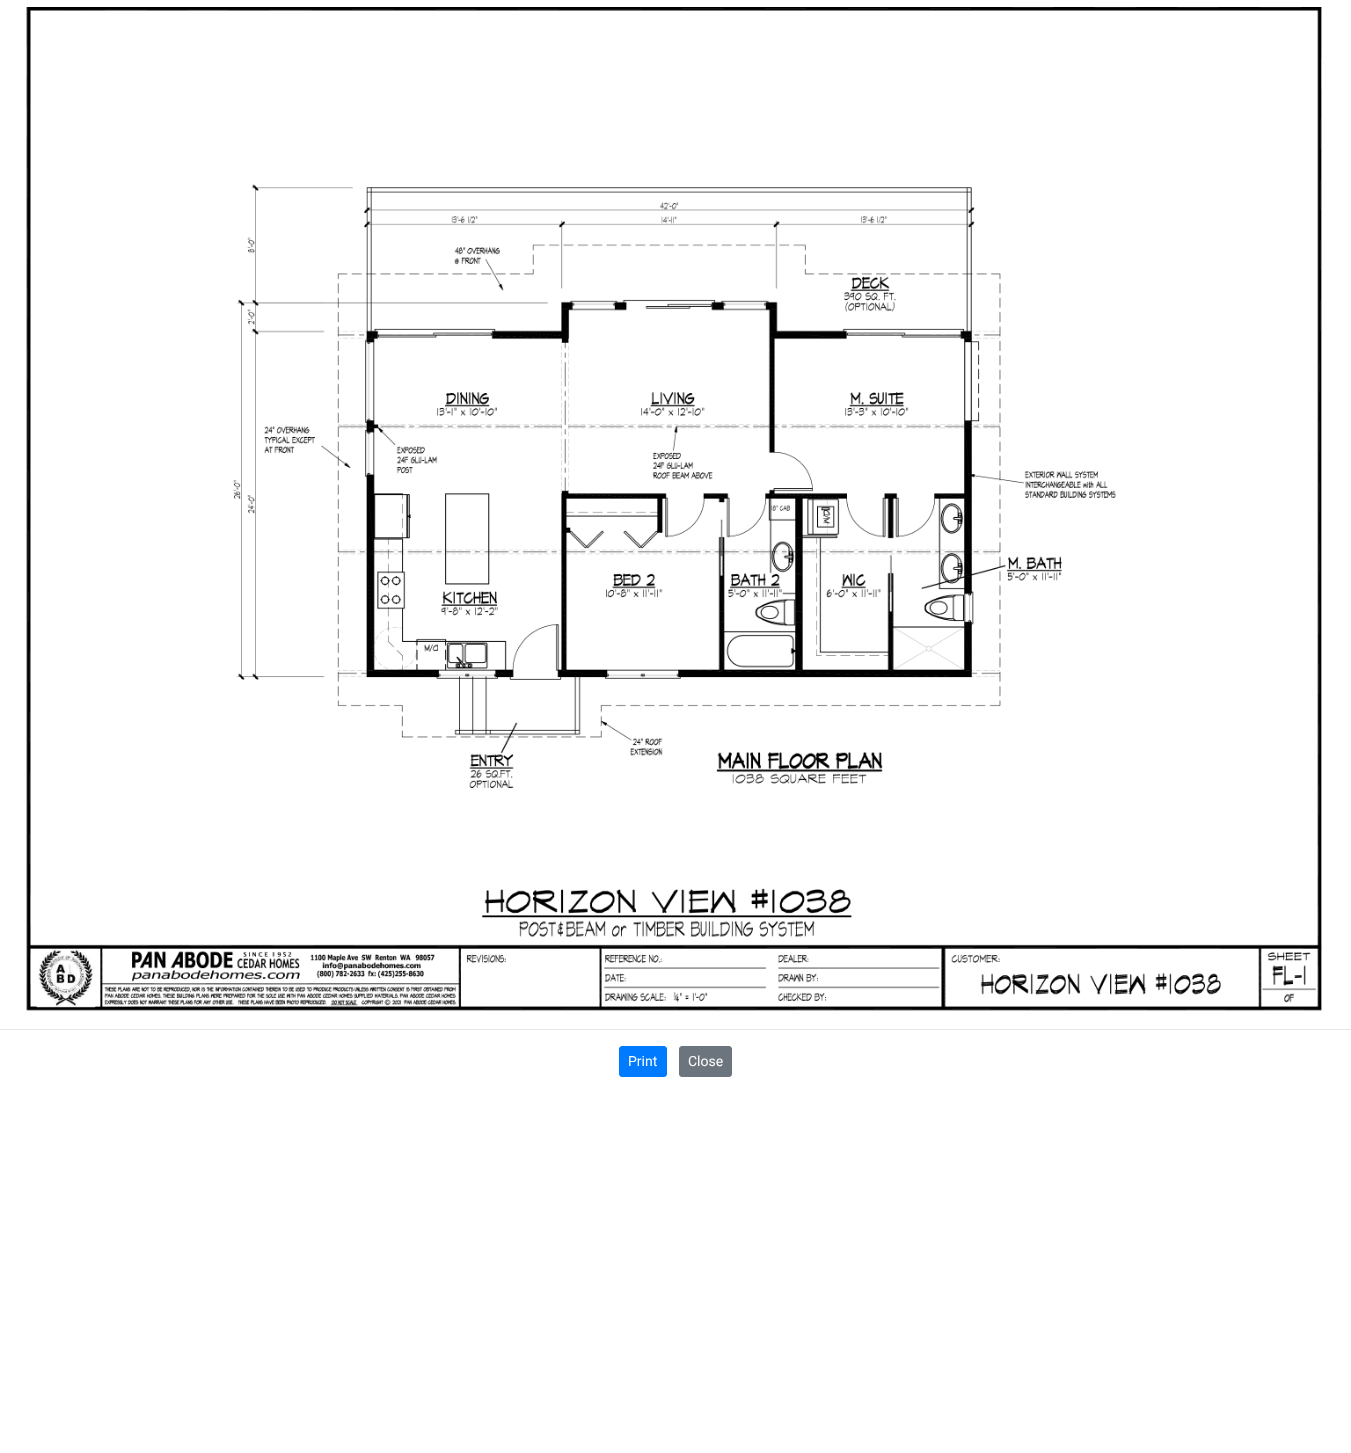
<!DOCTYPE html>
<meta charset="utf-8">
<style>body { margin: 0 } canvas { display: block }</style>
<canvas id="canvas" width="1351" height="1453"></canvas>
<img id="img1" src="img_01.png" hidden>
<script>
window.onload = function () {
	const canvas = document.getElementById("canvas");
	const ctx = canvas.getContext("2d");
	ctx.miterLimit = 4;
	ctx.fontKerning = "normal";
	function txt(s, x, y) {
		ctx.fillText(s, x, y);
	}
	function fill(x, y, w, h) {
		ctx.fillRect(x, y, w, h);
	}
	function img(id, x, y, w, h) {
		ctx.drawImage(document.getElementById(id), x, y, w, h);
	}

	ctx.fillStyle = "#FFFFFF";
	fill(0, 0, 1351, 1453);
	img("img1", 26, 7, 1296, 1004);
	ctx.fillStyle = "#E6E6E6";
	fill(0, 1029, 1351, 1);
	ctx.fillStyle = "#007BFF";
	ctx.beginPath();
	ctx.roundRect(619.5, 1046.5, 47, 30, 2.5);
	ctx.fill();
	ctx.strokeStyle = "#007BFF";
	ctx.stroke();
	ctx.fillStyle = "#6C757D";
	ctx.beginPath();
	ctx.roundRect(679.5, 1046.5, 52, 30, 2.5);
	ctx.fill();
	ctx.strokeStyle = "#6C757D";
	ctx.stroke();
	ctx.font = "14px Roboto";
	ctx.fillStyle = "#FFFFFF";
	txt("Print", 628, 1066);
	txt("Close", 688, 1066);
};
</script>
